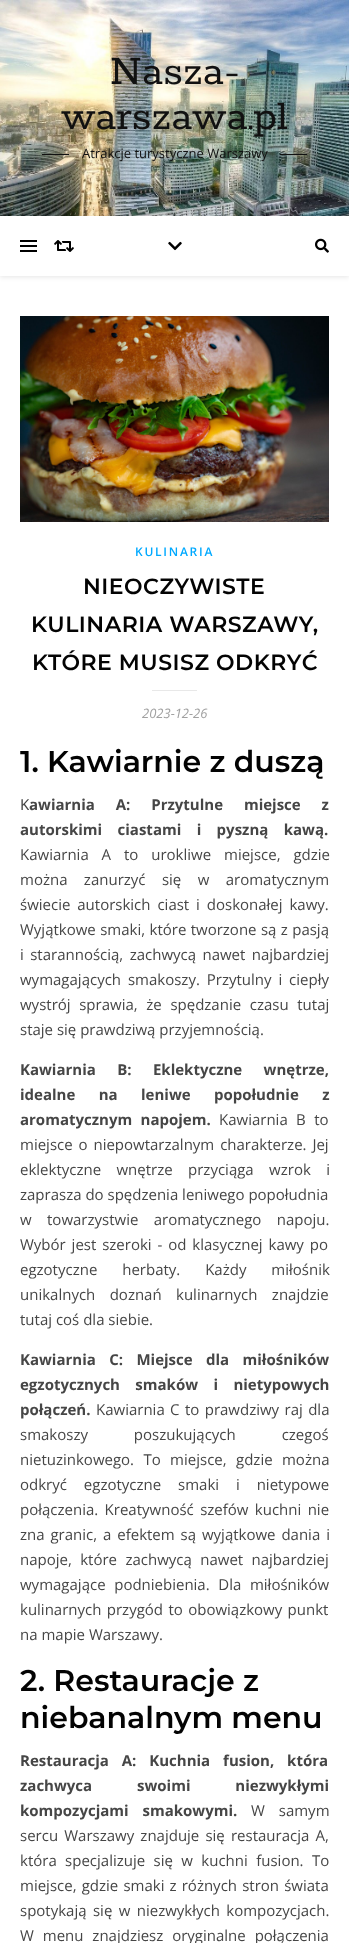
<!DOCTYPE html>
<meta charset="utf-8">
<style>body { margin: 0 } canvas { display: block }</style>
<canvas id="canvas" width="349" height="1943"></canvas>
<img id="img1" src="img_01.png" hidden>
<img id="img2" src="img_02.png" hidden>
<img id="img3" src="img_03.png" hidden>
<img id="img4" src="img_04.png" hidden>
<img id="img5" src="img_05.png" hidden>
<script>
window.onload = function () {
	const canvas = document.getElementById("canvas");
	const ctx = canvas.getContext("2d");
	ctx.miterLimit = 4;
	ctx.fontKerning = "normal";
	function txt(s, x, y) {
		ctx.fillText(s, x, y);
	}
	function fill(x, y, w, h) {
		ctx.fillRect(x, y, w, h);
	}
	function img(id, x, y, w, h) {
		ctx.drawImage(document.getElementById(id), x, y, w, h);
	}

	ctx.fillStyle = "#FFFFFF";
	fill(0, 0, 349, 1943);
	img("img1", 0, 0, 349, 216);
	ctx.fillStyle = "#111111";
	fill(42, 154, 27, 1);
	fill(280, 154, 27, 1);
	ctx.save();
	ctx.beginPath();
	ctx.moveTo(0, 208);
	ctx.lineTo(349, 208);
	ctx.lineTo(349, 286);
	ctx.lineTo(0, 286);
	ctx.closePath();
	ctx.moveTo(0, 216);
	ctx.lineTo(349, 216);
	ctx.lineTo(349, 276);
	ctx.lineTo(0, 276);
	ctx.closePath();
	ctx.clip("evenodd");
	ctx.fillStyle = "rgba(0, 0, 0, 0.1)";
	ctx.filter = "blur(2.5px)";
	ctx.beginPath();
	ctx.rect(0, 217, 349, 60);
	ctx.fill();
	ctx.filter = "none";
	ctx.restore();
	ctx.fillStyle = "#000000";
	fill(20, 240, 17, 2);
	fill(20, 245, 17, 2);
	fill(20, 250, 17, 2);
	img("img2", 54, 240, 20, 12);
	img("img3", 168, 241, 14, 10);
	img("img4", 315, 238, 14, 15);
	img("img5", 20, 316, 309, 206);
	ctx.fillStyle = "#E8E8E8";
	fill(152, 690, 45, 1);
	ctx.font = "45px Rokkitt";
	ctx.fillStyle = "#111111";
	txt("Nasza-", 110, 84);
	txt("warszawa.pl", 61, 129);
	ctx.font = "13px Open Sans";
	txt("Atrakcje turystyczne Warszawy", 82, 158);
	ctx.letterSpacing = "1.75px";
	ctx.font = "600 12px Open Sans";
	ctx.fillStyle = "#00A9FF";
	txt("KULINARIA", 135, 556);
	ctx.letterSpacing = "0.5px";
	ctx.font = "600 22px Montserrat";
	ctx.fillStyle = "#030303";
	txt("NIEOCZYWISTE", 83, 594);
	txt("KULINARIA WARSZAWY,", 31, 632);
	txt("KTÓRE MUSISZ ODKRYĆ", 32, 670);
	ctx.letterSpacing = "0px";
	ctx.font = "italic 13px Open Sans";
	ctx.fillStyle = "#A1A1A1";
	txt("2023-12-26", 142, 718);
	ctx.font = "600 30px Montserrat";
	ctx.fillStyle = "#030303";
	txt("1. Kawiarnie z duszą", 20, 772);
	ctx.font = "15px Noto Sans";
	ctx.fillStyle = "#464646";
	txt("K", 20, 810);
	ctx.wordSpacing = "17px";
	ctx.font = "bold 15px Open Sans";
	txt("awiarnia A: Przytulne miejsce z", 29, 810);
	ctx.wordSpacing = "11.5px";
	txt("autorskimi ciastami i pyszną kawą.", 20, 835);
	ctx.wordSpacing = "9px";
	ctx.font = "15px Open Sans";
	txt("Kawiarnia A to urokliwe miejsce, gdzie", 20, 860);
	ctx.wordSpacing = "12.5px";
	txt("można zanurzyć się w aromatycznym", 20, 885);
	ctx.wordSpacing = "3px";
	txt("świecie autorskich ciast i doskonałej kawy.", 20, 910);
	ctx.wordSpacing = "0.5px";
	txt("Wyjątkowe smaki, które tworzone są z pasją", 20, 935);
	ctx.wordSpacing = "2.5px";
	txt("i starannością, zachwycą nawet najbardziej", 20, 960);
	ctx.wordSpacing = "3px";
	txt("wymagających smakoszy. Przytulny i ciepły", 20, 985);
	ctx.wordSpacing = "4.75px";
	txt("wystrój sprawia, że spędzanie czasu tutaj", 20, 1010);
	ctx.wordSpacing = "0px";
	txt("staje się prawdziwą przyjemnością.", 20, 1035);
	ctx.wordSpacing = "17.5px";
	ctx.font = "bold 15px Open Sans";
	txt("Kawiarnia B: Eklektyczne wnętrze,", 20, 1075);
	ctx.wordSpacing = "19.5px";
	txt("idealne na leniwe popołudnie z", 20, 1100);
	ctx.wordSpacing = "4.5px";
	txt("aromatycznym napojem.", 20, 1125);
	ctx.font = "15px Open Sans";
	txt("Kawiarnia B to", 219, 1125);
	ctx.wordSpacing = "2px";
	txt("miejsce o niepowtarzalnym charakterze. Jej", 20, 1150);
	ctx.wordSpacing = "11.5px";
	txt("eklektyczne wnętrze przyciąga wzrok i", 20, 1175);
	ctx.wordSpacing = "0px";
	txt("zaprasza do spędzenia leniwego popołudnia", 20, 1200);
	ctx.wordSpacing = "11.5px";
	txt("w towarzystwie aromatycznego napoju.", 20, 1225);
	ctx.wordSpacing = "2px";
	txt("Wybór jest szeroki - od klasycznej kawy po", 20, 1250);
	ctx.wordSpacing = "21px";
	txt("egzotyczne herbaty. Każdy miłośnik", 20, 1275);
	ctx.wordSpacing = "10.5px";
	txt("unikalnych doznań kulinarnych znajdzie", 20, 1300);
	ctx.wordSpacing = "0px";
	txt("tutaj coś dla siebie.", 20, 1325);
	ctx.wordSpacing = "9.5px";
	ctx.font = "bold 15px Open Sans";
	txt("Kawiarnia C: Miejsce dla miłośników", 20, 1365);
	ctx.wordSpacing = "11.5px";
	txt("egzotycznych smaków i nietypowych", 20, 1390);
	ctx.wordSpacing = "0px";
	txt("połączeń.", 20, 1415);
	ctx.wordSpacing = "1.5px";
	ctx.font = "15px Open Sans";
	txt("Kawiarnia C to prawdziwy raj dla", 96, 1415);
	ctx.wordSpacing = "42px";
	txt("smakoszy poszukujących czegoś", 20, 1440);
	ctx.wordSpacing = "5.5px";
	txt("nietuzinkowego. To miejsce, gdzie można", 20, 1465);
	ctx.wordSpacing = "13px";
	txt("odkryć egzotyczne smaki i nietypowe", 20, 1490);
	ctx.wordSpacing = "2.5px";
	txt("połączenia. Kreatywność szefów kuchni nie", 20, 1515);
	ctx.wordSpacing = "2px";
	txt("zna granic, a efektem są wyjątkowe dania i", 20, 1540);
	ctx.wordSpacing = "4.5px";
	txt("napoje, które zachwycą nawet najbardziej", 20, 1565);
	ctx.wordSpacing = "4.75px";
	txt("wymagające podniebienia. Dla miłośników", 20, 1590);
	ctx.wordSpacing = "1.5px";
	txt("kulinarnych przygód to obowiązkowy punkt", 20, 1615);
	ctx.wordSpacing = "0px";
	txt("na mapie Warszawy.", 20, 1640);
	ctx.font = "600 30px Montserrat";
	ctx.fillStyle = "#030303";
	txt("2. Restauracje z", 20, 1691);
	txt("niebanalnym menu", 20, 1728);
	ctx.wordSpacing = "9px";
	ctx.font = "bold 15px Open Sans";
	ctx.fillStyle = "#464646";
	txt("Restauracja A: Kuchnia fusion, która", 20, 1766);
	ctx.wordSpacing = "41px";
	txt("zachwyca swoimi niezwykłymi", 20, 1791);
	ctx.wordSpacing = "10px";
	txt("kompozycjami smakowymi.", 20, 1816);
	ctx.font = "15px Open Sans";
	txt("W samym", 251, 1816);
	ctx.wordSpacing = "2.25px";
	txt("sercu Warszawy znajduje się restauracja A,", 20, 1841);
	ctx.wordSpacing = "4.5px";
	txt("która specjalizuje się w kuchni fusion. To", 20, 1866);
	ctx.wordSpacing = "1.25px";
	txt("miejsce, gdzie smaki z różnych stron świata", 20, 1891);
	ctx.wordSpacing = "2.5px";
	txt("spotykają się w niezwykłych kompozycjach.", 20, 1916);
	ctx.wordSpacing = "5px";
	txt("W menu znajdziesz oryginalne połączenia", 20, 1941);
};
</script>
